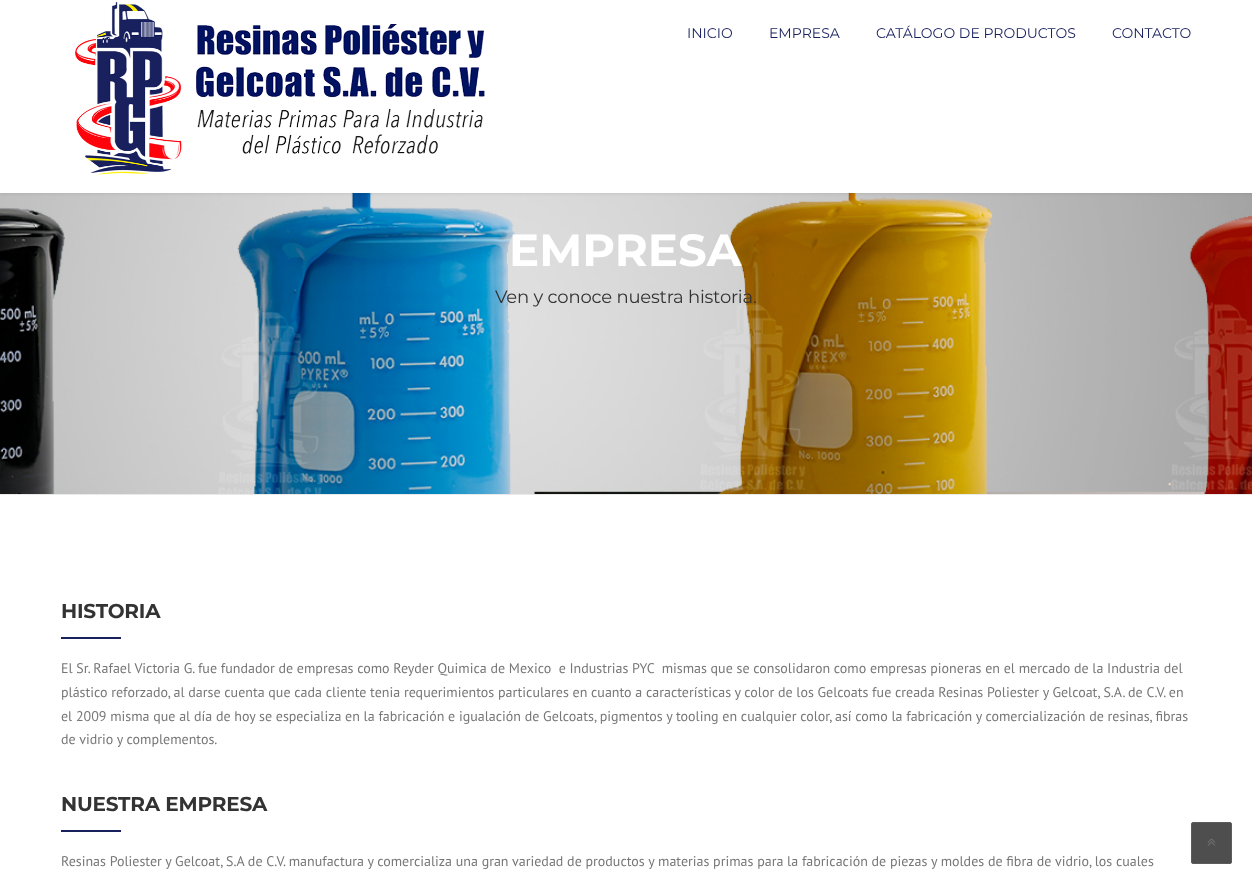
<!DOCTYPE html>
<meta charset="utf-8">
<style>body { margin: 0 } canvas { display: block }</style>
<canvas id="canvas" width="1252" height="885"></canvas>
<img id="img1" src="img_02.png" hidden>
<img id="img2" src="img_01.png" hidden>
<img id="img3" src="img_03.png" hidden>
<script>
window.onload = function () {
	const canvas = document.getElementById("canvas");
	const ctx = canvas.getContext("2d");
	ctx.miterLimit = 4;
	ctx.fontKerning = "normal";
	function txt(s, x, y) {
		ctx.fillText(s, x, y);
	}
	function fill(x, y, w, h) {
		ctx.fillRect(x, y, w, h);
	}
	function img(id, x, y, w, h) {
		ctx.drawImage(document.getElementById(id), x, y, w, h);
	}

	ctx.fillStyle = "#FFFFFF";
	fill(0, 0, 1252, 885);
	img("img1", 0, 193, 1252, 301);
	ctx.fillStyle = "rgba(0, 0, 0, 0.08)";
	ctx.filter = "blur(1.5px)";
	ctx.beginPath();
	ctx.rect(0, 1, 1252, 193);
	ctx.fill();
	ctx.filter = "none";
	ctx.fillStyle = "#FFFFFF";
	fill(0, 0, 1252, 193);
	img("img2", 75, 2, 410, 173);
	ctx.fillStyle = "#E9E9E9";
	fill(0, 494, 1252, 1);
	ctx.fillStyle = "#18205E";
	fill(61, 637, 60, 2);
	fill(61, 830, 60, 2);
	ctx.fillStyle = "#4E4E4E";
	ctx.beginPath();
	ctx.roundRect(1191.5, 822.5, 40, 41, 1.5);
	ctx.fill();
	ctx.strokeStyle = "#5C5C5C";
	ctx.stroke();
	img("img3", 1207, 838, 9, 8);
	ctx.font = "14px Montserrat";
	ctx.fillStyle = "#18205E";
	txt("INICIO", 687, 38);
	txt("EMPRESA", 769, 38);
	txt("CATÁLOGO DE PRODUCTOS", 876, 38);
	txt("CONTACTO", 1112, 38);
	ctx.font = "bold 45px Montserrat";
	ctx.fillStyle = "#FFFFFF";
	txt("EMPRESA", 509, 266);
	ctx.letterSpacing = "-0.2px";
	ctx.font = "18px Montserrat";
	ctx.fillStyle = "#333333";
	txt("Ven y conoce nuestra historia.", 495, 303);
	ctx.font = "bold 20px Montserrat";
	txt("HISTORIA", 61, 618);
	ctx.letterSpacing = "0px";
	ctx.font = "14px PT Sans";
	ctx.fillStyle = "#777777";
	txt("El Sr. Rafael Victoria G. fue fundador de empresas como Reyder Quimica de Mexico  e Industrias PYC  mismas que se consolidaron como empresas pioneras en el mercado de la Industria del", 61, 673);
	txt("plástico reforzado, al darse cuenta que cada cliente tenia requerimientos particulares en cuanto a características y color de los Gelcoats fue creada Resinas Poliester y Gelcoat, S.A. de C.V. en", 61, 697);
	txt("el 2009 misma que al día de hoy se especializa en la fabricación e igualación de Gelcoats, pigmentos y tooling en cualquier color, así como la fabricación y comercialización de resinas, fibras", 61, 721);
	txt("de vidrio y complementos.", 61, 744);
	ctx.letterSpacing = "-0.2px";
	ctx.font = "bold 20px Montserrat";
	ctx.fillStyle = "#333333";
	txt("NUESTRA EMPRESA", 61, 811);
	ctx.letterSpacing = "0px";
	ctx.font = "14px PT Sans";
	ctx.fillStyle = "#777777";
	txt("Resinas Poliester y Gelcoat, S.A de C.V. manufactura y comercializa una gran variedad de productos y materias primas para la fabricación de piezas y moldes de fibra de vidrio, los cuales", 61, 866);
};
</script>
